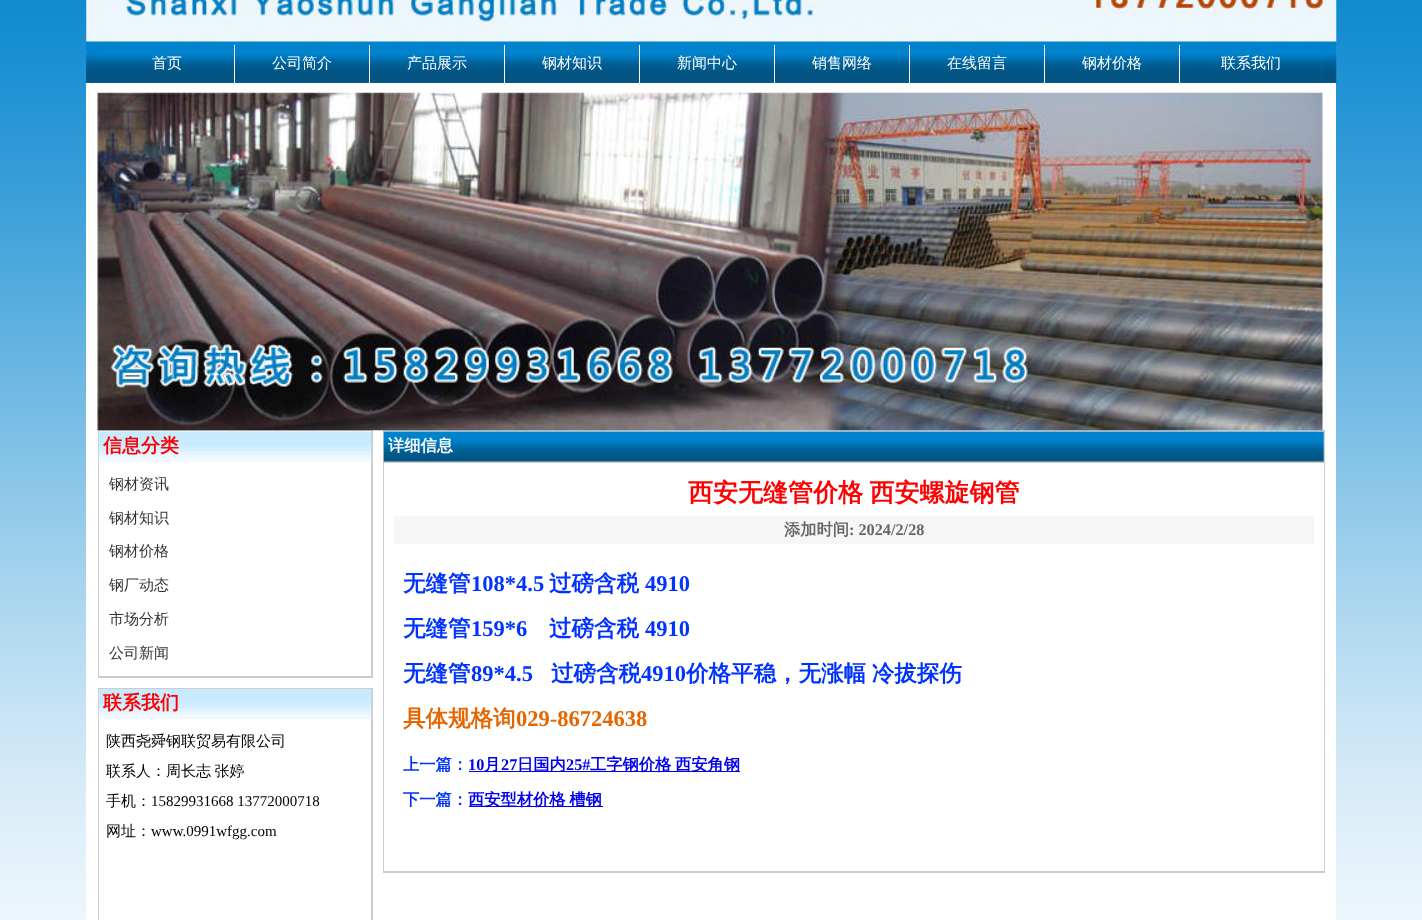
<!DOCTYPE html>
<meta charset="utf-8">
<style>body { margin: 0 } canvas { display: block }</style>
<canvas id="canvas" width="1422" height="920"></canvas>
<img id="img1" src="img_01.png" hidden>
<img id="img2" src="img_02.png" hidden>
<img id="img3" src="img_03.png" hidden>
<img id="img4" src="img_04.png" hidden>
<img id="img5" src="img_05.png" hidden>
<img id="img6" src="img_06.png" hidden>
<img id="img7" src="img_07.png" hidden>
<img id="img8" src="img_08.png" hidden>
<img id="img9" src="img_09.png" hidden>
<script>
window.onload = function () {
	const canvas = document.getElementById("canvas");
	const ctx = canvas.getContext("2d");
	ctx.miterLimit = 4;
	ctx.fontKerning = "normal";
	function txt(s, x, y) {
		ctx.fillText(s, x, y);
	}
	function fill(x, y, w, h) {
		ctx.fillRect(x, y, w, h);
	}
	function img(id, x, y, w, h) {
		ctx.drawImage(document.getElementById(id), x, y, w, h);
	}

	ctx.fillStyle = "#FFFFFF";
	fill(0, 0, 1422, 920);
	img("img1", 0, 0, 1422, 920);
	ctx.fillStyle = "#0082CD";
	fill(86, 41, 1250, 42);
	img("img2", 86, 0, 1251, 42);
	img("img3", 86, 45, 14, 38);
	img("img4", 100, 55, 1222, 28);
	ctx.fillStyle = "#FFFFFF";
	fill(234, 45, 1, 38);
	fill(369, 45, 1, 38);
	fill(504, 45, 1, 38);
	fill(639, 45, 1, 38);
	fill(774, 45, 1, 38);
	fill(909, 45, 1, 38);
	fill(1044, 45, 1, 38);
	fill(1179, 45, 1, 38);
	img("img5", 1321, 45, 16, 38);
	fill(86, 83, 1250, 837);
	ctx.fillStyle = "#CCCCCC";
	fill(98, 430, 275, 248);
	fill(383, 430, 942, 443);
	img("img6", 97, 92, 1226, 339);
	ctx.fillStyle = "#FFFFFF";
	fill(99, 431, 272, 245);
	img("img7", 98, 431, 274, 31);
	ctx.fillStyle = "#CCCCCC";
	fill(98, 688, 275, 232);
	ctx.fillStyle = "#FFFFFF";
	fill(99, 719, 272, 201);
	img("img8", 98, 689, 274, 30);
	fill(384, 431, 940, 30);
	img("img9", 383, 431, 941, 31);
	fill(384, 463, 940, 408);
	ctx.fillStyle = "#F6F6F6";
	fill(394, 516, 920, 28);
	ctx.fillStyle = "#0000EE";
	fill(469, 771, 271, 1);
	fill(469, 806, 134, 1);
	ctx.font = "500 15px WenQuanYi Zen Hei";
	ctx.fillStyle = "#FFFFFF";
	txt("首页", 152, 68);
	txt("公司简介", 272, 68);
	txt("产品展示", 407, 68);
	txt("钢材知识", 542, 68);
	txt("新闻中心", 677, 68);
	txt("销售网络", 812, 68);
	txt("在线留言", 947, 68);
	txt("钢材价格", 1082, 68);
	txt("联系我们", 1221, 68);
	ctx.font = "bold 19px WenQuanYi Zen Hei";
	ctx.fillStyle = "#FF0000";
	txt("信息分类", 103, 452);
	ctx.font = "500 15px WenQuanYi Zen Hei";
	ctx.fillStyle = "#333333";
	txt("钢材资讯", 109, 489);
	txt("钢材知识", 109, 523);
	txt("钢材价格", 109, 556);
	txt("钢厂动态", 109, 590);
	txt("市场分析", 109, 624);
	txt("公司新闻", 109, 658);
	ctx.font = "bold 19px WenQuanYi Zen Hei";
	ctx.fillStyle = "#FF0000";
	txt("联系我们", 103, 709);
	ctx.font = "500 15px WenQuanYi Zen Hei";
	ctx.fillStyle = "#000000";
	txt("陕西尧舜钢联贸易有限公司", 106, 746);
	ctx.wordSpacing = "-1px";
	txt("联系人：周长志 张婷", 106, 776);
	ctx.wordSpacing = "0px";
	txt("手机：", 106, 806);
	ctx.font = "15px Liberation Serif";
	txt("15829931668 13772000718", 151, 806);
	ctx.font = "500 15px WenQuanYi Zen Hei";
	txt("网址：", 106, 836);
	ctx.font = "15px Liberation Serif";
	txt("www.0991wfgg.com", 151, 836);
	ctx.font = "bold 16.25px WenQuanYi Zen Hei";
	ctx.fillStyle = "#FFFFFF";
	txt("详细信息", 388, 451);
	ctx.wordSpacing = "-1px";
	ctx.font = "bold 25px WenQuanYi Zen Hei";
	ctx.fillStyle = "#FF0000";
	txt("西安无缝管价格 西安螺旋钢管", 688, 501);
	ctx.wordSpacing = "0px";
	ctx.font = "bold 16.25px WenQuanYi Zen Hei";
	ctx.fillStyle = "#666666";
	txt("添加时间", 784, 535);
	ctx.font = "bold 16.25px Liberation Serif";
	txt(": 2024/2/28", 849, 535);
	ctx.font = "bold 22.5px WenQuanYi Zen Hei";
	ctx.fillStyle = "#0033FF";
	txt("无缝管", 403, 591);
	ctx.font = "bold 22.5px Liberation Serif";
	txt("108*4.5", 471, 591);
	ctx.font = "bold 22.5px WenQuanYi Zen Hei";
	txt("过磅含税", 549, 591);
	ctx.font = "bold 22.5px Liberation Serif";
	txt("4910", 645, 591);
	ctx.font = "bold 22.5px WenQuanYi Zen Hei";
	txt("无缝管", 403, 636);
	ctx.font = "bold 22.5px Liberation Serif";
	txt("159*6", 471, 636);
	ctx.font = "bold 22.5px WenQuanYi Zen Hei";
	txt("过磅含税", 549, 636);
	ctx.font = "bold 22.5px Liberation Serif";
	txt("4910", 645, 636);
	ctx.font = "bold 22.5px WenQuanYi Zen Hei";
	txt("无缝管", 403, 681);
	ctx.font = "bold 22.5px Liberation Serif";
	txt("89*4.5", 471, 681);
	ctx.font = "bold 22.5px WenQuanYi Zen Hei";
	txt("过磅含税", 551, 681);
	ctx.font = "bold 22.5px Liberation Serif";
	txt("4910", 641, 681);
	ctx.wordSpacing = "-1px";
	ctx.font = "bold 22.5px WenQuanYi Zen Hei";
	txt("价格平稳，无涨幅 冷拔探伤", 686, 681);
	ctx.wordSpacing = "0px";
	ctx.fillStyle = "#E56600";
	txt("具体规格询", 403, 726);
	ctx.font = "bold 22.5px Liberation Serif";
	txt("029-86724638", 516, 726);
	ctx.font = "bold 16.25px WenQuanYi Zen Hei";
	ctx.fillStyle = "#0033FF";
	txt("上一篇：", 403, 770);
	ctx.font = "bold 16.25px Liberation Serif";
	ctx.fillStyle = "#0000EE";
	txt("10", 468, 770);
	ctx.font = "bold 16.25px WenQuanYi Zen Hei";
	txt("月", 484, 770);
	ctx.font = "bold 16.25px Liberation Serif";
	txt("27", 501, 770);
	ctx.font = "bold 16.25px WenQuanYi Zen Hei";
	txt("日国内", 517, 770);
	ctx.font = "bold 16.25px Liberation Serif";
	txt("25#", 566, 770);
	ctx.wordSpacing = "-1px";
	ctx.font = "bold 16.25px WenQuanYi Zen Hei";
	txt("工字钢价格 西安角钢", 590, 770);
	ctx.wordSpacing = "0px";
	ctx.fillStyle = "#0033FF";
	txt("下一篇：", 403, 805);
	ctx.wordSpacing = "-1px";
	ctx.fillStyle = "#0000EE";
	txt("西安型材价格 槽钢", 468, 805);
};
</script>
